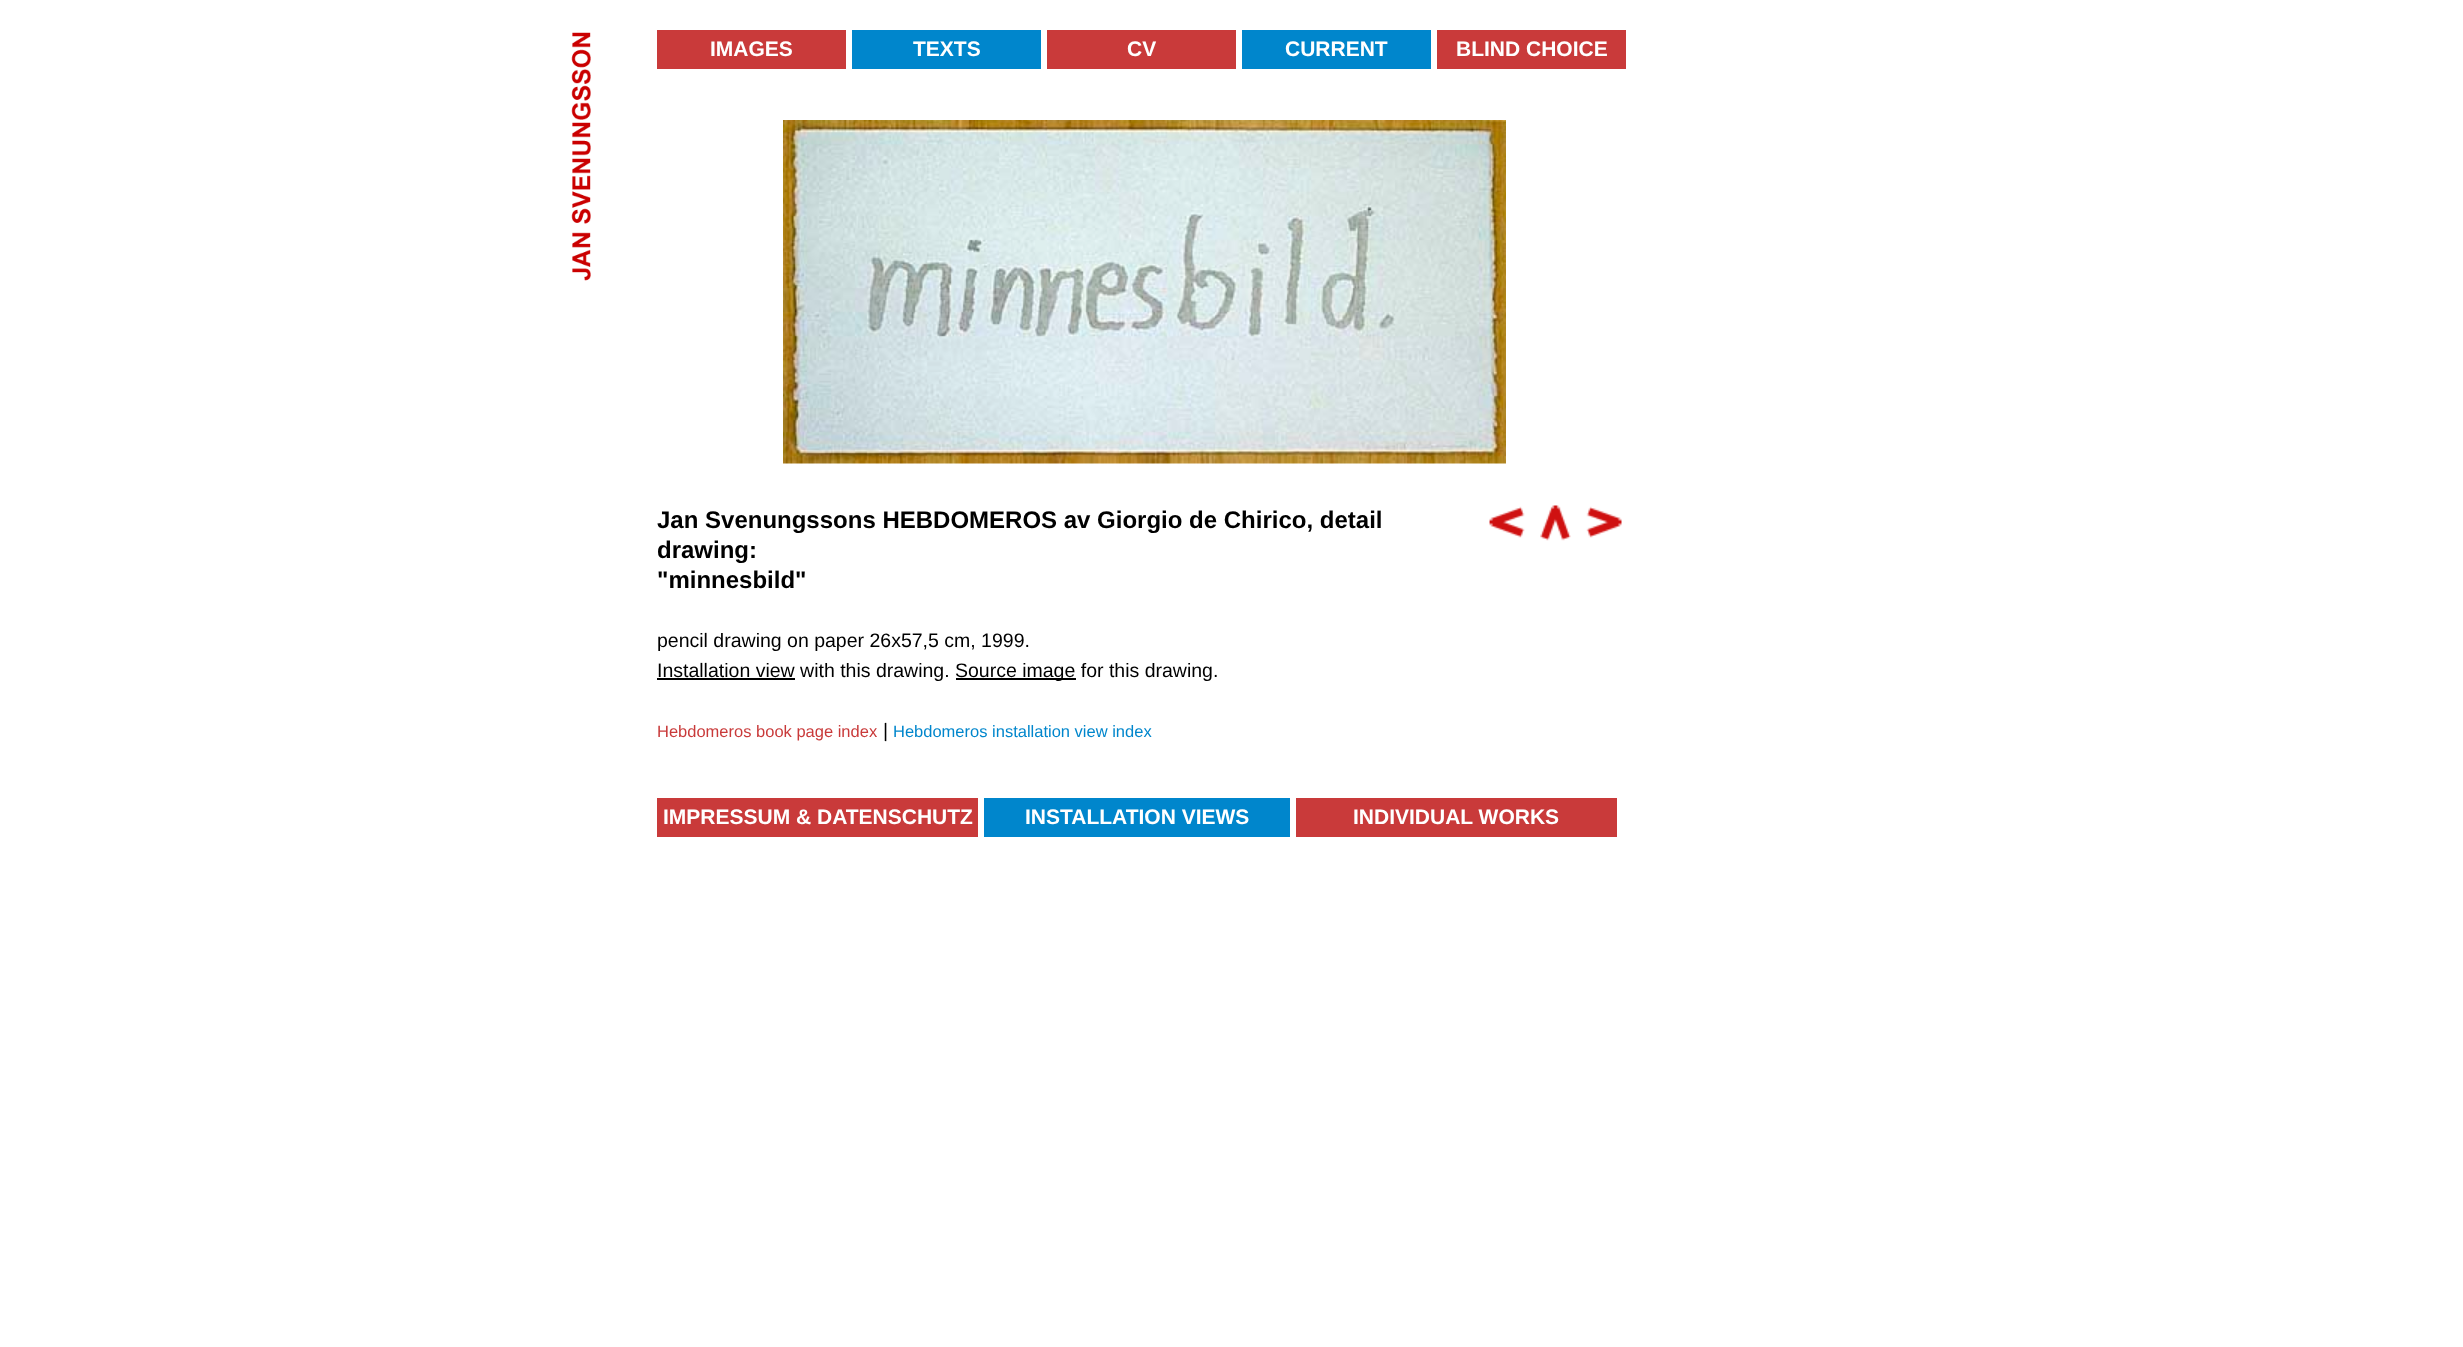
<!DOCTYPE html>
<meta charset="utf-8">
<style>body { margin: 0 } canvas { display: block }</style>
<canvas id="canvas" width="2463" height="1347"></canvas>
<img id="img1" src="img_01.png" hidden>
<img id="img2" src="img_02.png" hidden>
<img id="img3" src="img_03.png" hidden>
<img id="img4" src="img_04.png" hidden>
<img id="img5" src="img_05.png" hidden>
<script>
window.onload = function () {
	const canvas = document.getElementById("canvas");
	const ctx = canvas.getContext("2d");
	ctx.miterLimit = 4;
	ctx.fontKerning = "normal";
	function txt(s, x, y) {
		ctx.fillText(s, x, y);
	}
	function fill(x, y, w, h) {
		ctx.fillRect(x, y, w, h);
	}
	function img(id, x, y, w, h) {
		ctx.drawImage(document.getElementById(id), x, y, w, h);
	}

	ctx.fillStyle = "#FFFFFF";
	fill(0, 0, 2463, 1347);
	img("img1", 571, 32, 20, 249);
	ctx.fillStyle = "#C93A3A";
	fill(657, 30, 189, 39);
	ctx.fillStyle = "#0086CC";
	fill(852, 30, 189, 39);
	ctx.fillStyle = "#C93A3A";
	fill(1047, 30, 189, 39);
	ctx.fillStyle = "#0086CC";
	fill(1242, 30, 189, 39);
	ctx.fillStyle = "#C93A3A";
	fill(1437, 30, 189, 39);
	img("img2", 783, 120, 723, 344);
	ctx.fillStyle = "#000000";
	fill(657, 678, 138, 2);
	fill(956, 678, 120, 2);
	img("img3", 1489, 506, 36, 32);
	img("img4", 1540, 505, 31, 36);
	img("img5", 1586, 506, 36, 32);
	ctx.fillStyle = "#C93A3A";
	fill(657, 798, 321, 39);
	ctx.fillStyle = "#0086CC";
	fill(984, 798, 306, 39);
	ctx.fillStyle = "#C93A3A";
	fill(1296, 798, 321, 39);
	ctx.font = "bold 21px Liberation Sans";
	ctx.fillStyle = "#FFFFFF";
	txt("IMAGES", 710, 56);
	txt("TEXTS", 913, 56);
	txt("CV", 1127, 56);
	txt("CURRENT", 1285, 56);
	txt("BLIND CHOICE", 1456, 56);
	ctx.font = "bold 24px Liberation Sans";
	ctx.fillStyle = "#000000";
	txt("Jan Svenungssons HEBDOMEROS av Giorgio de Chirico, detail", 657, 528);
	txt("drawing:", 657, 558);
	txt("\"minnesbild\"", 657, 588);
	ctx.font = "19.5px Liberation Sans";
	txt("pencil drawing on paper 26x57,5 cm, 1999.", 657, 647);
	txt("Installation view with this drawing.", 657, 677);
	txt("Source image for this drawing.", 955, 677);
	ctx.font = "16.5px Liberation Sans";
	ctx.fillStyle = "#C93A3A";
	txt("Hebdomeros book page index", 657, 737);
	ctx.font = "19.5px Liberation Sans";
	ctx.fillStyle = "#000000";
	txt("|", 883, 737);
	ctx.font = "16.5px Liberation Sans";
	ctx.fillStyle = "#0086CC";
	txt("Hebdomeros installation view index", 893, 737);
	ctx.font = "bold 21px Liberation Sans";
	ctx.fillStyle = "#FFFFFF";
	txt("IMPRESSUM & DATENSCHUTZ", 663, 824);
	txt("INSTALLATION VIEWS", 1025, 824);
	txt("INDIVIDUAL WORKS", 1353, 824);
};
</script>
